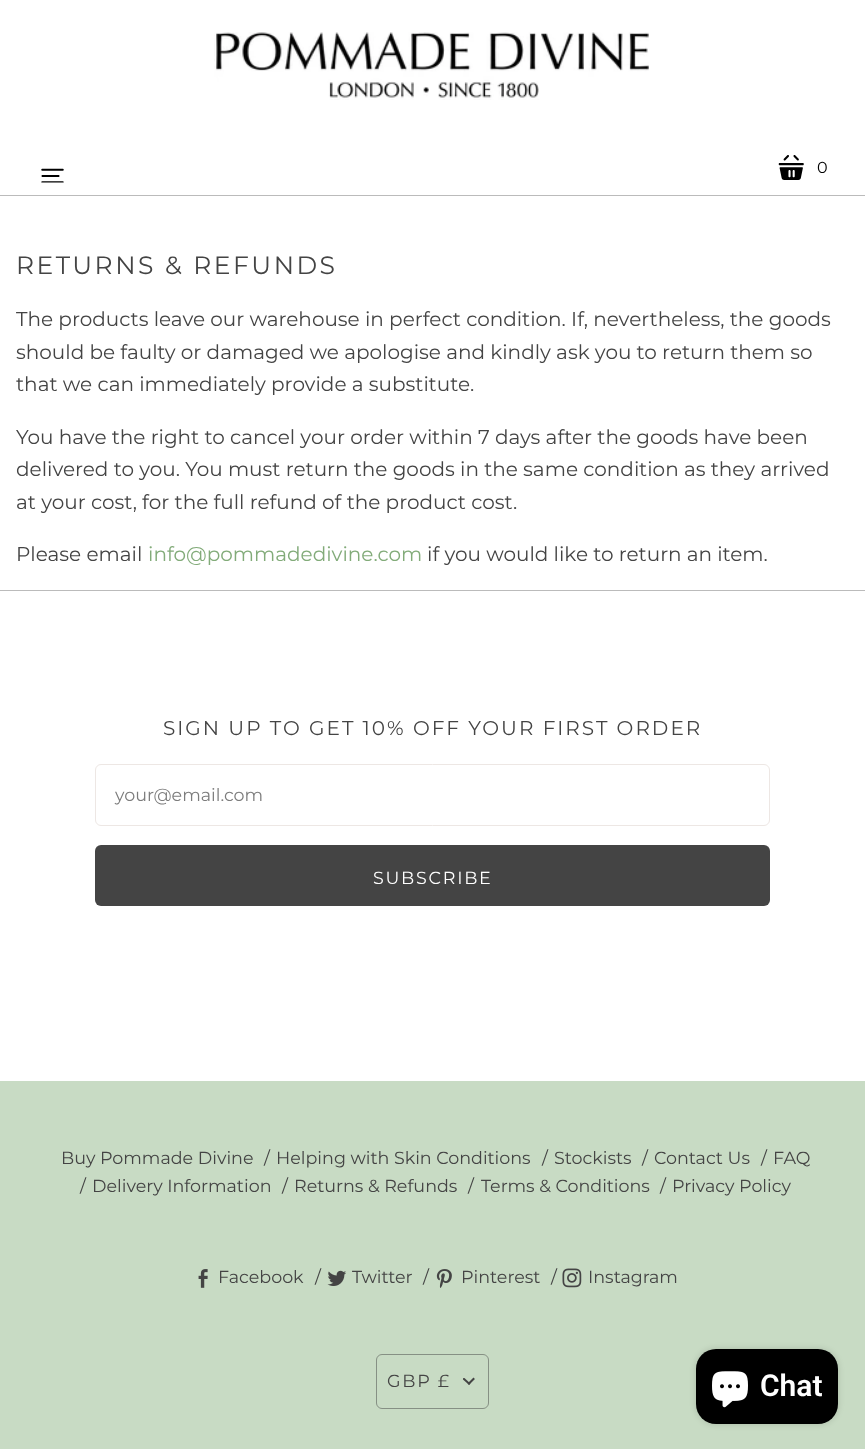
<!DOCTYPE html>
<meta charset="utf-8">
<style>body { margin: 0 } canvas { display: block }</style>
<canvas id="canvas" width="865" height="1449"></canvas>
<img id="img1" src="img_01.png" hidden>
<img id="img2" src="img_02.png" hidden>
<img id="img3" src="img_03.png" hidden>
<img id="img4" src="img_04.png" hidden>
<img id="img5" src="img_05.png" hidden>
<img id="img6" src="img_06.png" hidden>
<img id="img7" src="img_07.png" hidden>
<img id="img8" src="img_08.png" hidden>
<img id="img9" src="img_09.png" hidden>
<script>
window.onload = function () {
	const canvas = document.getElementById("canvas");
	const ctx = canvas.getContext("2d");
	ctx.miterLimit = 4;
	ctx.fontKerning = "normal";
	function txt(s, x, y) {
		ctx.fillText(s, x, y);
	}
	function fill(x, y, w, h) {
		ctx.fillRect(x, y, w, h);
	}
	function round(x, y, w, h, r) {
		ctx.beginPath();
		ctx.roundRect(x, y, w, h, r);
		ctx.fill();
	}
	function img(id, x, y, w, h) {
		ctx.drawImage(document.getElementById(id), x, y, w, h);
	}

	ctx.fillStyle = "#FFFFFF";
	fill(0, 0, 865, 1449);
	ctx.fillStyle = "#BBBBBB";
	fill(0, 195, 865, 1);
	img("img1", 214, 32, 435, 68);
	img("img2", 41, 168, 23, 15);
	img("img3", 41, 175, 19, 2);
	img("img4", 778, 155, 26, 25);
	fill(0, 590, 865, 1);
	ctx.beginPath();
	ctx.roundRect(95.5, 764.5, 674, 61, 5.5);
	ctx.strokeStyle = "#EDE7E4";
	ctx.stroke();
	ctx.fillStyle = "#444444";
	round(95, 845, 675, 61, 6);
	ctx.fillStyle = "#C8DBC4";
	fill(0, 1081, 865, 368);
	img("img5", 198, 1269, 10, 19);
	img("img6", 327, 1270, 20, 16);
	img("img7", 436, 1269, 16, 19);
	img("img8", 562, 1268, 20, 20);
	ctx.beginPath();
	ctx.roundRect(376.5, 1354.5, 112, 54, 5.5);
	ctx.strokeStyle = "#869084";
	ctx.stroke();
	ctx.beginPath();
	ctx.moveTo(469, 1383.5);
	ctx.lineTo(473.5, 1379);
	ctx.strokeStyle = "#444444";
	ctx.lineWidth = 2;
	ctx.lineCap = "square";
	ctx.stroke();
	ctx.save();
	ctx.beginPath();
	ctx.rect(463, 1378, 12, 8);
	ctx.clip();
	ctx.beginPath();
	ctx.moveTo(469, 1383.5);
	ctx.lineTo(464, 1379);
	ctx.stroke();
	ctx.restore();
	ctx.fillStyle = "rgba(0, 0, 0, 0.15)";
	ctx.filter = "blur(3px)";
	ctx.beginPath();
	ctx.roundRect(696, 1349, 142, 75, 20);
	ctx.fill();
	ctx.filter = "none";
	ctx.fillStyle = "#000000";
	round(696, 1349, 142, 75, 20);
	img("img9", 712, 1371, 36, 37);
	ctx.font = "100 16px Montserrat";
	txt("0", 817, 173);
	ctx.letterSpacing = "2.5px";
	ctx.font = "100 25px Montserrat";
	ctx.fillStyle = "#444444";
	txt("RETURNS & REFUNDS", 16, 274);
	ctx.letterSpacing = "0px";
	ctx.font = "100 20px Montserrat";
	txt("The products leave our warehouse in perfect condition. If, nevertheless, the goods", 16, 326);
	txt("should be faulty or damaged we apologise and kindly ask you to return them so", 16, 359);
	txt("that we can immediately provide a substitute.", 16, 391);
	txt("You have the right to cancel your order within 7 days after the goods have been", 16, 444);
	txt("delivered to you. You must return the goods in the same condition as they arrived", 16, 476);
	txt("at your cost, for the full refund of the product cost.", 16, 509);
	txt("Please email", 16, 561);
	ctx.fillStyle = "#82AB79";
	txt("info@pommadedivine.com", 148, 561);
	ctx.fillStyle = "#444444";
	txt("if you would like to return an item.", 427, 561);
	ctx.letterSpacing = "2px";
	txt("SIGN UP TO GET 10% OFF YOUR FIRST ORDER", 163, 735);
	ctx.letterSpacing = "0px";
	ctx.font = "100 17.5px Montserrat";
	ctx.fillStyle = "#7C7C7C";
	txt("your@email.com", 115, 801);
	ctx.letterSpacing = "1.75px";
	ctx.fillStyle = "#FFFFFF";
	txt("SUBSCRIBE", 373, 884);
	ctx.letterSpacing = "0px";
	ctx.fillStyle = "#444444";
	txt("Buy Pommade Divine", 61, 1164);
	txt("/", 264, 1164);
	txt("Helping with Skin Conditions", 276, 1164);
	txt("/", 542, 1164);
	txt("Stockists", 554, 1164);
	txt("/", 642, 1164);
	txt("Contact Us", 654, 1164);
	txt("/", 761, 1164);
	txt("FAQ", 773, 1164);
	txt("/", 80, 1192);
	txt("Delivery Information", 92, 1192);
	txt("/", 282, 1192);
	txt("Returns & Refunds", 294, 1192);
	txt("/", 468, 1192);
	txt("Terms & Conditions", 481, 1192);
	txt("/", 660, 1192);
	txt("Privacy Policy", 672, 1192);
	txt("Facebook", 218, 1283);
	txt("/", 315, 1283);
	txt("Twitter", 352, 1283);
	txt("/", 423, 1283);
	txt("Pinterest", 461, 1283);
	txt("/", 551, 1283);
	txt("Instagram", 588, 1283);
	ctx.letterSpacing = "1.75px";
	txt("GBP £", 387, 1387);
	ctx.letterSpacing = "0px";
	ctx.font = "600 30px Roboto";
	ctx.fillStyle = "#FFFFFF";
	txt("Chat", 760, 1396);
};
</script>
